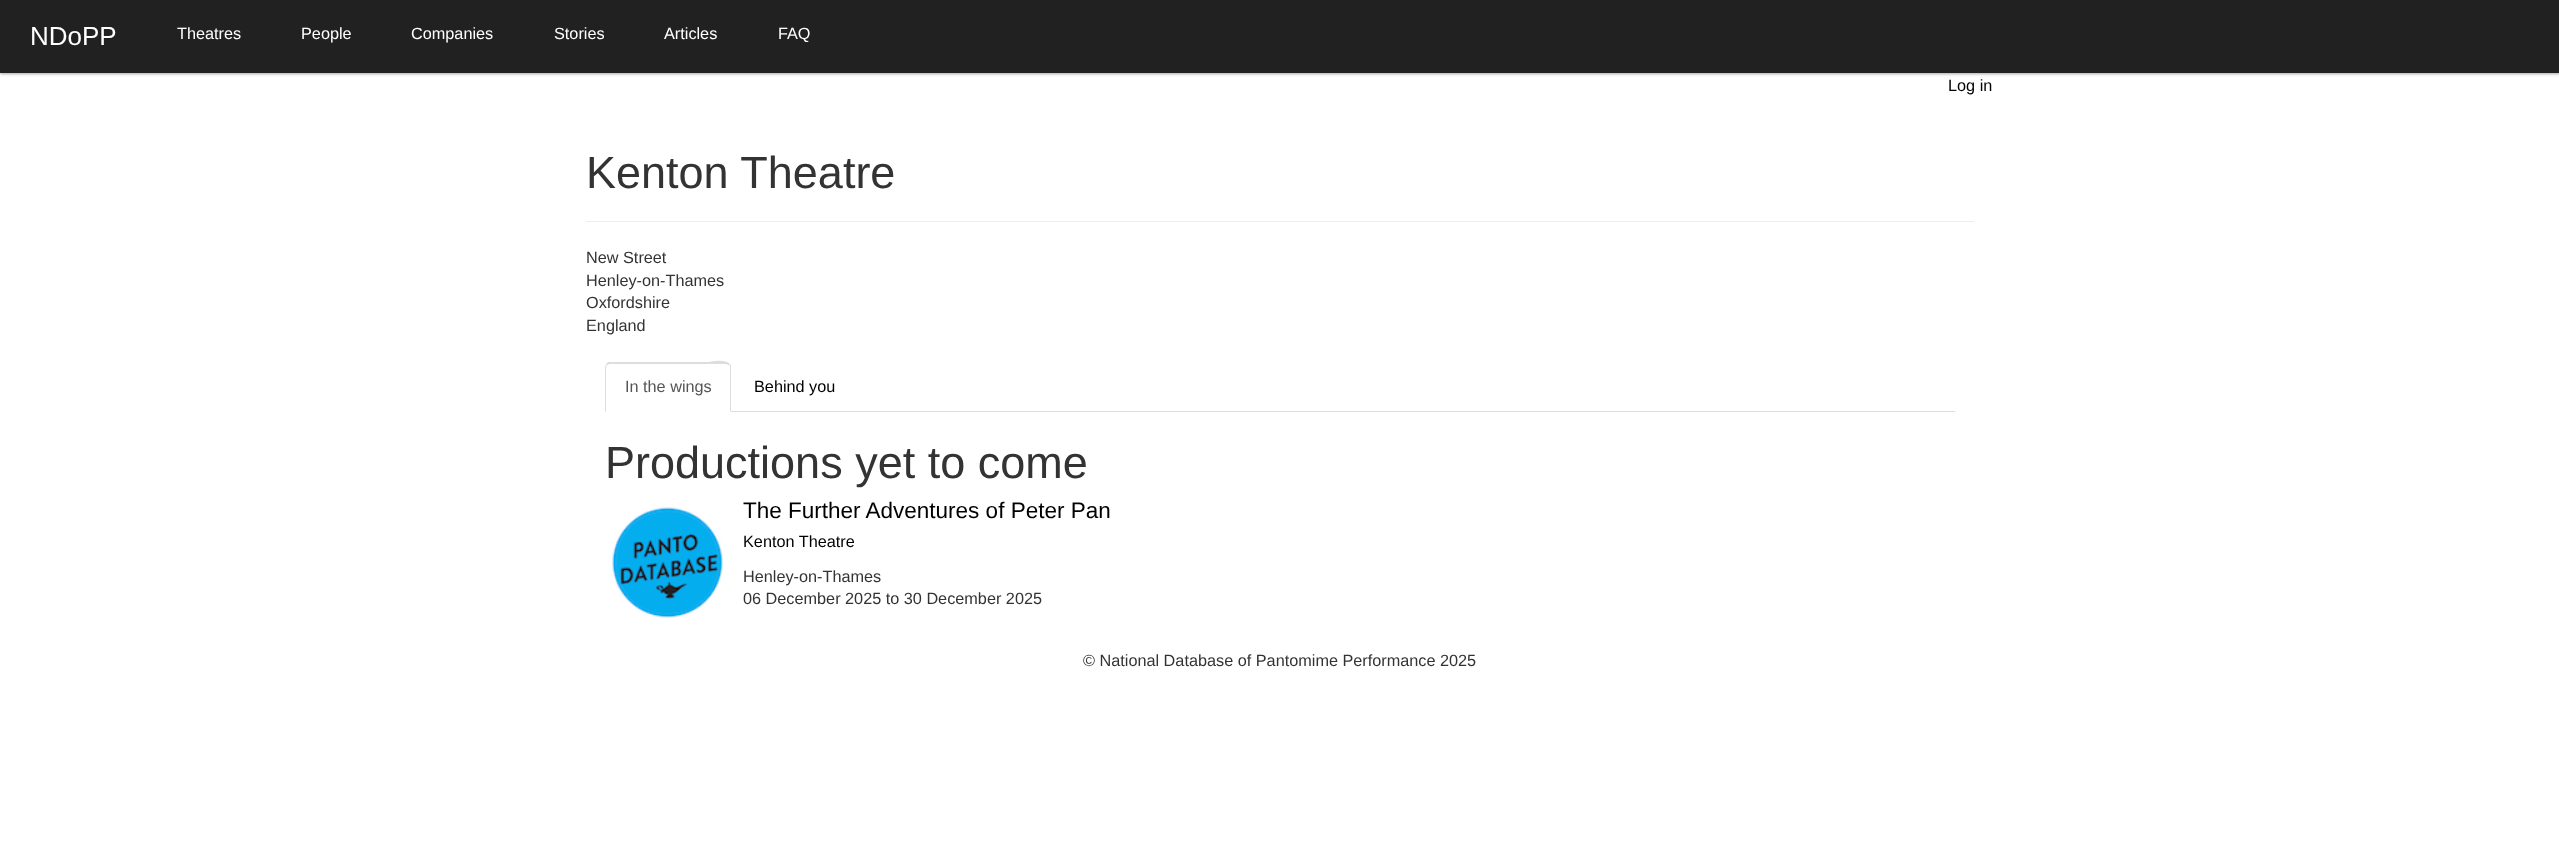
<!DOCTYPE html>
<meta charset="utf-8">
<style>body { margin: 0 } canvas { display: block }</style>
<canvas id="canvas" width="2559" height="864"></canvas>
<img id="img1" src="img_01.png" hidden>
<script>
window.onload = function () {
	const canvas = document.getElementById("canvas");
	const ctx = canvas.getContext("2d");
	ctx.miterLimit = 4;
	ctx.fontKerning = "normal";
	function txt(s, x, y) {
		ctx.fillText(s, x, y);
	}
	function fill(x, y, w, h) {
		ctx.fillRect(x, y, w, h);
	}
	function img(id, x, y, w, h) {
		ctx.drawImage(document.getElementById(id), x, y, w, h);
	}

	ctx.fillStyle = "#FFFFFF";
	fill(0, 0, 2559, 864);
	ctx.fillStyle = "rgba(0, 0, 0, 0.24)";
	ctx.filter = "blur(1px)";
	ctx.beginPath();
	ctx.rect(0, 1, 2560, 73);
	ctx.fill();
	ctx.filter = "none";
	ctx.fillStyle = "rgba(0, 0, 0, 0.12)";
	ctx.filter = "blur(2px)";
	ctx.beginPath();
	ctx.rect(0, 1, 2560, 73);
	ctx.fill();
	ctx.filter = "none";
	ctx.fillStyle = "#212121";
	fill(0, 0, 2559, 73);
	ctx.fillStyle = "#EEEEEE";
	fill(586, 221, 1388, 1);
	ctx.fillStyle = "#DDDDDD";
	fill(731, 411, 1224, 1);
	ctx.beginPath();
	ctx.moveTo(610, 364);
	ctx.lineTo(607, 365);
	ctx.lineTo(606, 364);
	ctx.lineTo(608, 362);
	ctx.lineTo(708, 362);
	ctx.bezierCurveTo(709, 362, 725, 358, 730, 364);
	ctx.lineTo(729, 365);
	ctx.lineTo(726, 364);
	ctx.closePath();
	ctx.fill();
	ctx.beginPath();
	ctx.moveTo(730, 364);
	ctx.bezierCurveTo(731, 365, 731, 367, 731, 368);
	ctx.lineTo(731, 412);
	ctx.lineTo(730, 411);
	ctx.lineTo(730, 368);
	ctx.bezierCurveTo(730, 367, 730, 366, 729, 365);
	ctx.closePath();
	ctx.fill();
	ctx.beginPath();
	ctx.moveTo(605, 368);
	ctx.lineTo(605, 412);
	ctx.lineTo(606, 411);
	ctx.lineTo(606, 368);
	ctx.bezierCurveTo(606, 366, 607, 365, 607, 365);
	ctx.lineTo(606, 364);
	ctx.bezierCurveTo(606, 365, 605, 366, 605, 368);
	ctx.closePath();
	ctx.fill();
	img("img1", 612, 507, 111, 111);
	ctx.font = "26px Liberation Sans";
	ctx.fillStyle = "#FFFFFF";
	txt("NDoPP", 30, 45);
	ctx.font = "16.25px Liberation Sans";
	txt("Theatres", 177, 39);
	txt("People", 301, 39);
	txt("Companies", 411, 39);
	txt("Stories", 554, 39);
	txt("Articles", 664, 39);
	txt("FAQ", 778, 39);
	ctx.fillStyle = "#000000";
	txt("Log in", 1948, 91);
	ctx.font = "45px Liberation Sans";
	ctx.fillStyle = "#333333";
	txt("Kenton Theatre", 586, 188);
	ctx.font = "16.25px Liberation Sans";
	txt("New Street", 586, 263);
	txt("Henley-on-Thames", 586, 286);
	txt("Oxfordshire", 586, 308);
	txt("England", 586, 331);
	ctx.fillStyle = "#555555";
	txt("In the wings", 625, 392);
	ctx.fillStyle = "#000000";
	txt("Behind you", 754, 392);
	ctx.font = "45px Liberation Sans";
	ctx.fillStyle = "#333333";
	txt("Productions yet to come", 605, 478);
	ctx.font = "22.5px Liberation Sans";
	ctx.fillStyle = "#000000";
	txt("The Further Adventures of Peter Pan", 743, 518);
	ctx.font = "16.25px Liberation Sans";
	txt("Kenton Theatre", 743, 547);
	ctx.fillStyle = "#333333";
	txt("Henley-on-Thames", 743, 582);
	txt("06 December 2025 to 30 December 2025", 743, 604);
	txt("© National Database of Pantomime Performance 2025", 1083, 666);
};
</script>
